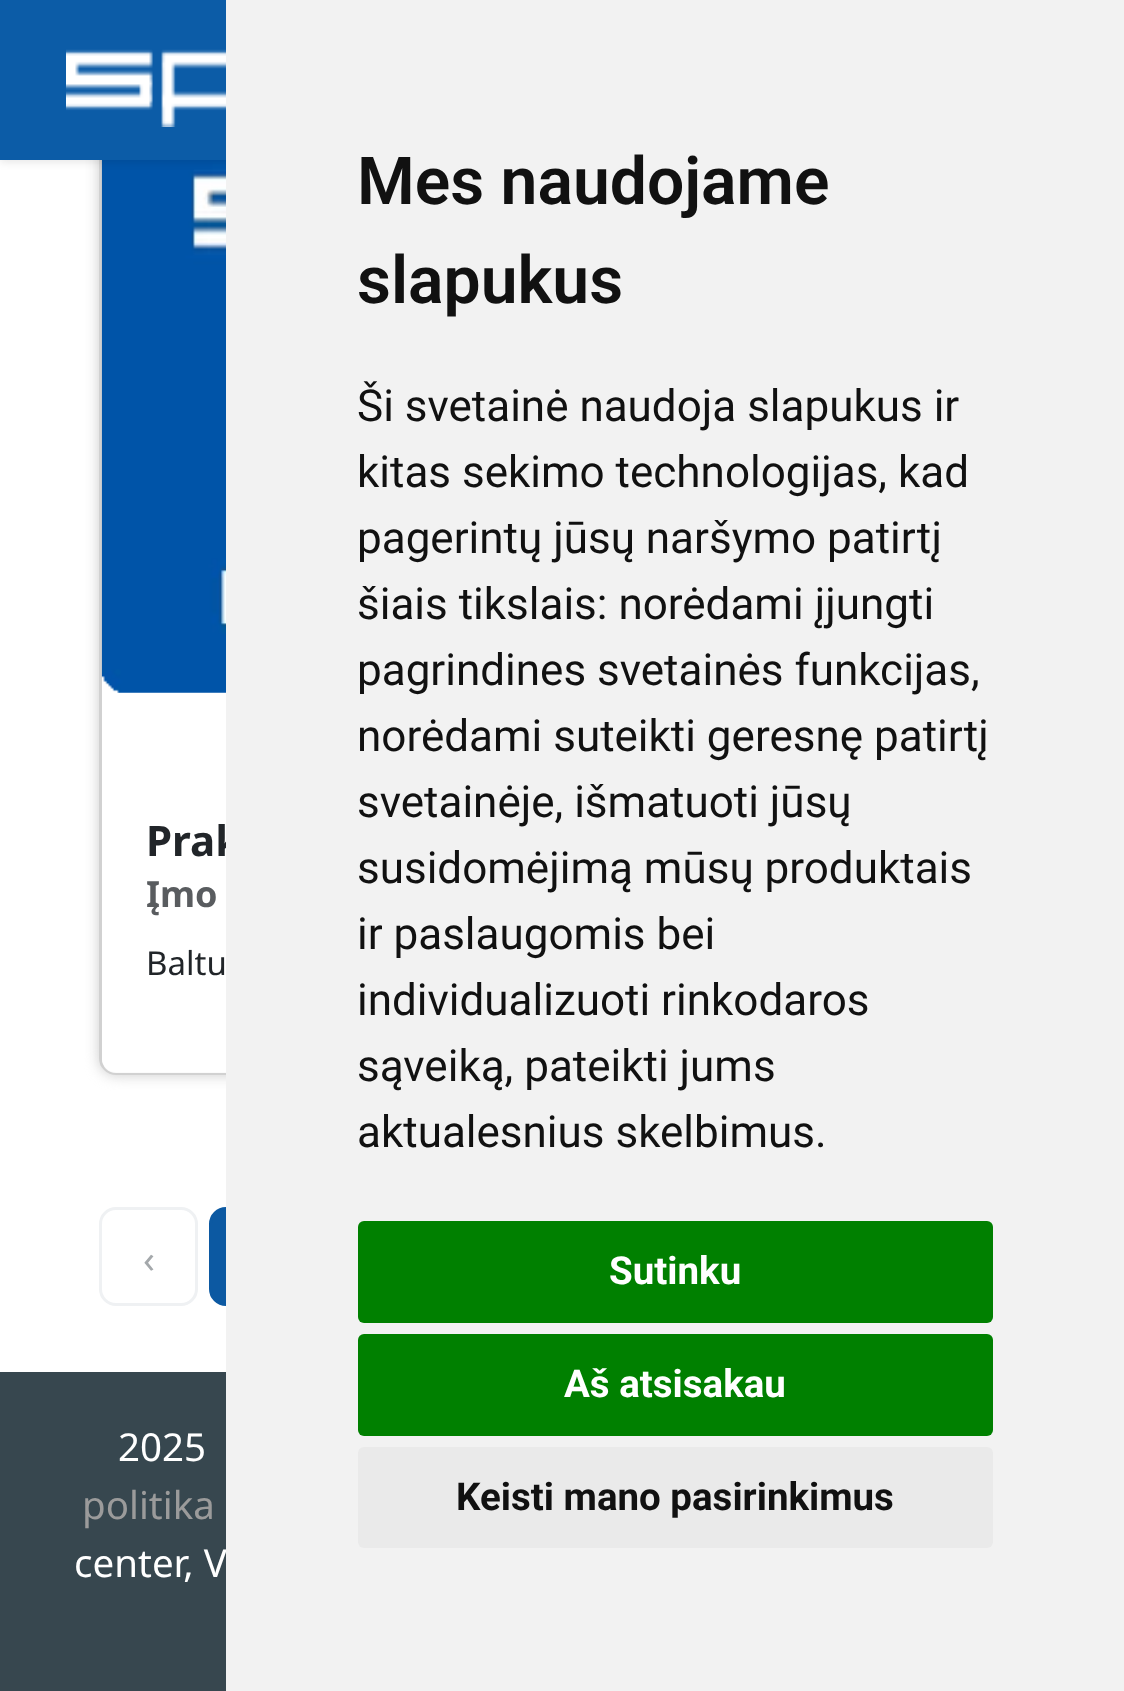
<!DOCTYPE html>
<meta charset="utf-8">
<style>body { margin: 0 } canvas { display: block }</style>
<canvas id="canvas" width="1124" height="1691"></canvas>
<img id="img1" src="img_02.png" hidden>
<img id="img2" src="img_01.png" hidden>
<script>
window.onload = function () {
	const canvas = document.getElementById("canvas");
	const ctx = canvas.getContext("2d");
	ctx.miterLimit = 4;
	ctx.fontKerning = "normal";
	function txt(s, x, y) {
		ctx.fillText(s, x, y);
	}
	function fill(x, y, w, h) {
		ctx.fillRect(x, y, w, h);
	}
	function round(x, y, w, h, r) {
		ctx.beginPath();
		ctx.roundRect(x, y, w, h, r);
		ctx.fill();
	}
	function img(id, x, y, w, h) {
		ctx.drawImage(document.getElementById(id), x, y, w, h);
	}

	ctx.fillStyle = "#FFFFFF";
	fill(0, 0, 1124, 1691);
	ctx.fillStyle = "#CCCCCC";
	ctx.filter = "blur(7px)";
	ctx.beginPath();
	ctx.roundRect(99, 77, 927, 998, 17);
	ctx.fill();
	ctx.filter = "none";
	ctx.fillStyle = "#FFFFFF";
	round(99, 77, 927, 998, 17);
	ctx.beginPath();
	ctx.roundRect(100.5, 78.5, 924, 995, 15.5);
	ctx.strokeStyle = "rgba(0, 0, 0, 0.18)";
	ctx.lineWidth = 3;
	ctx.stroke();
	img("img1", 101, 160, 125, 533);
	ctx.fillStyle = "rgba(0, 0, 0, 0.1)";
	ctx.filter = "blur(4px)";
	ctx.beginPath();
	ctx.rect(0, 3, 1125, 159);
	ctx.fill();
	ctx.filter = "none";
	ctx.fillStyle = "#0C5CA7";
	fill(0, 0, 226, 160);
	img("img2", 66, 49, 160, 78);
	ctx.fillStyle = "rgba(255, 255, 255, 0.9)";
	ctx.beginPath();
	ctx.roundRect(102, 770, 921, 303, [0, 0, 14, 14]);
	ctx.fill();
	ctx.beginPath();
	ctx.roundRect(100.5, 1208.5, 96, 96, 15.5);
	ctx.strokeStyle = "#EFF1F3";
	ctx.stroke();
	ctx.fillStyle = "#0C59A2";
	ctx.beginPath();
	ctx.roundRect(210.5, 1208.5, 96, 96, 15.5);
	ctx.fill();
	ctx.strokeStyle = "#0C59A2";
	ctx.stroke();
	ctx.fillStyle = "#37474F";
	fill(0, 1372, 226, 319);
	ctx.font = "bold 42px Noto Sans";
	ctx.fillStyle = "#212529";
	txt("Prak", 146, 856);
	ctx.font = "bold 36px Noto Sans";
	ctx.fillStyle = "#595C5F";
	txt("Įmo", 146, 907);
	ctx.font = "33px Noto Sans";
	ctx.fillStyle = "#212529";
	txt("Baltu", 146, 975);
	ctx.font = "38.5px Noto Sans";
	ctx.fillStyle = "#A4A8AB";
	txt("‹", 143, 1273);
	ctx.fillStyle = "#FFFFFF";
	txt("2025", 118, 1461);
	ctx.fillStyle = "#9B9B9B";
	txt("politika", 82, 1519);
	ctx.fillStyle = "#FFFFFF";
	txt("center, V", 74, 1577);
	ctx.fillStyle = "#F2F2F2";
	fill(226, 0, 898, 1691);
	ctx.font = "600 66px Roboto";
	ctx.fillStyle = "#111111";
	txt("Mes naudojame", 357, 204);
	txt("slapukus", 357, 303);
	ctx.font = "44px Roboto";
	txt("Ši svetainė naudoja slapukus ir", 357, 421);
	txt("kitas sekimo technologijas, kad", 357, 487);
	txt("pagerintų jūsų naršymo patirtį", 357, 553);
	txt("šiais tikslais: norėdami įjungti", 357, 619);
	txt("pagrindines svetainės funkcijas,", 357, 685);
	txt("norėdami suteikti geresnę patirtį", 357, 751);
	txt("svetainėje, išmatuoti jūsų", 357, 817);
	txt("susidomėjimą mūsų produktais", 357, 883);
	txt("ir paslaugomis bei", 357, 949);
	txt("individualizuoti rinkodaros", 357, 1015);
	txt("sąveiką, pateikti jums", 357, 1081);
	txt("aktualesnius skelbimus.", 357, 1147);
	ctx.fillStyle = "#008000";
	round(358, 1221, 635, 102, 6);
	ctx.font = "bold 38.5px Roboto";
	ctx.fillStyle = "#FFFFFF";
	txt("Sutinku", 609, 1284);
	ctx.fillStyle = "#008000";
	round(358, 1334, 635, 102, 6);
	ctx.fillStyle = "#FFFFFF";
	txt("Aš atsisakau", 564, 1397);
	ctx.fillStyle = "#EAEAEA";
	round(358, 1447, 635, 101, 6);
	ctx.fillStyle = "#111111";
	txt("Keisti mano pasirinkimus", 456, 1510);
};
</script>
